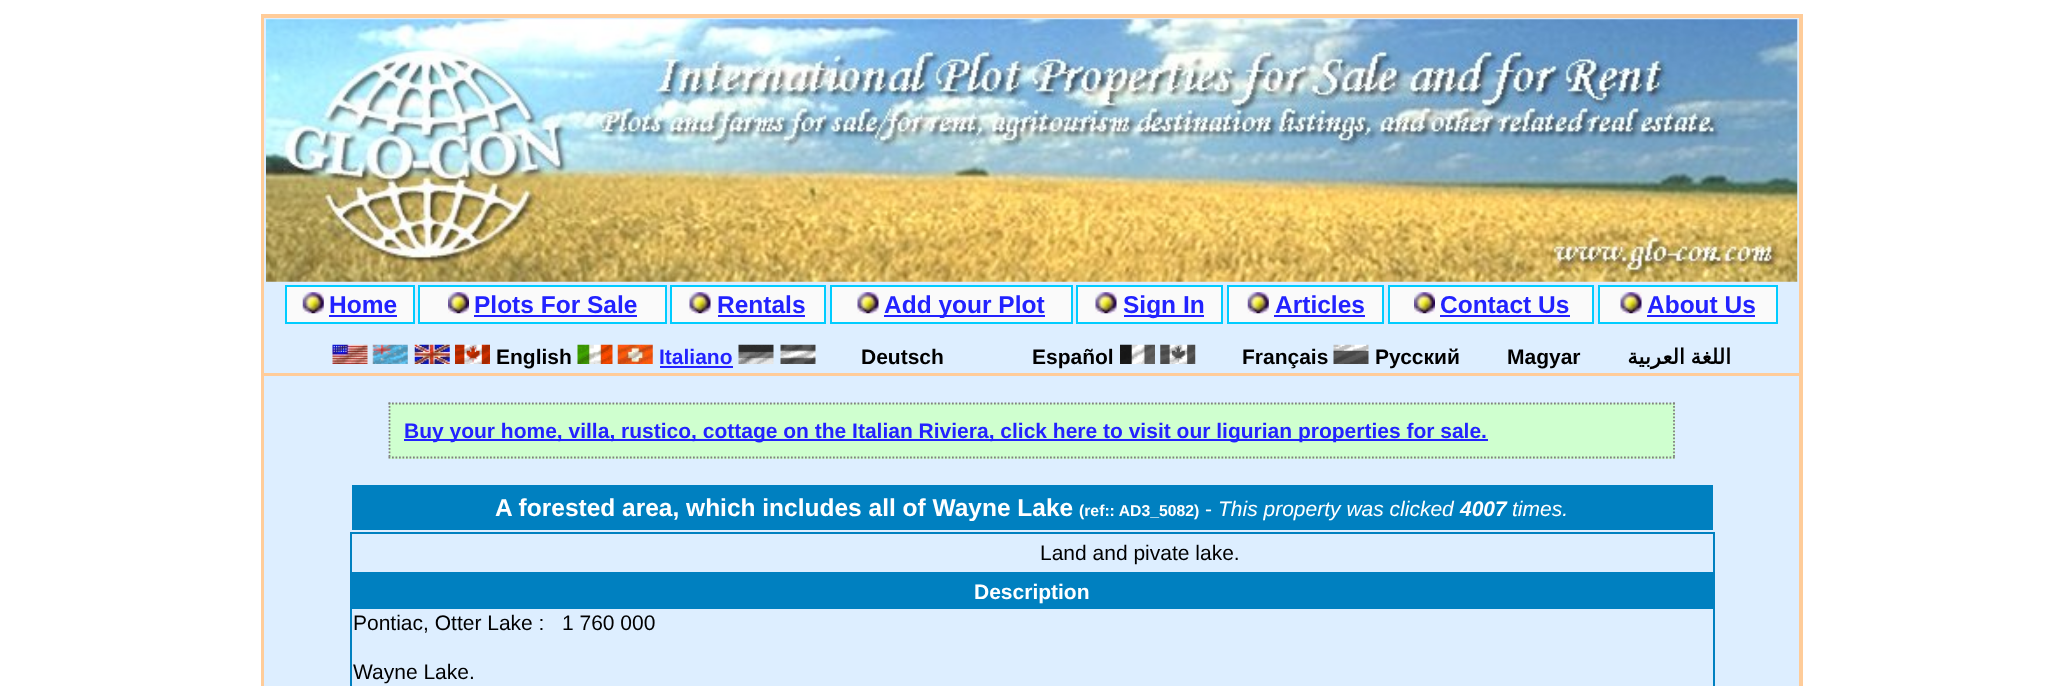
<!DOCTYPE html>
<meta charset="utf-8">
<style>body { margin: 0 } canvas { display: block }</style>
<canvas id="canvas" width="2063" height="686"></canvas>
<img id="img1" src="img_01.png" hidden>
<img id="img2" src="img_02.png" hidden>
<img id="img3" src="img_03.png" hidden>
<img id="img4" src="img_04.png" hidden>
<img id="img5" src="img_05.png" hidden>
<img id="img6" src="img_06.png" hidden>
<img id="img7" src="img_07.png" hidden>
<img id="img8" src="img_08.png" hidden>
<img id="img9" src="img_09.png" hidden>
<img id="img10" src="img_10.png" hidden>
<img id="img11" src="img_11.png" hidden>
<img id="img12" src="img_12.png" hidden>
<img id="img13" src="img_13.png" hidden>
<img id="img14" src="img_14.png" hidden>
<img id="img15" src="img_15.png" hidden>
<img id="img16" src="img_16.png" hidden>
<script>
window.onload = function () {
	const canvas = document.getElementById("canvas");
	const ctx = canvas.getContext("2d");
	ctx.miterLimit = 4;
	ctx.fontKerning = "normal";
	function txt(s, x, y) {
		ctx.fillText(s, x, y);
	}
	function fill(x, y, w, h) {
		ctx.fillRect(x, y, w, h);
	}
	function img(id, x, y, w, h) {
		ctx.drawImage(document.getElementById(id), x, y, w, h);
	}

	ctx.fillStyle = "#FFFFFF";
	fill(0, 0, 2063, 686);
	ctx.fillStyle = "#FFCC99";
	fill(261, 14, 1542, 672);
	ctx.fillStyle = "#DDEEFF";
	fill(264, 18, 1535, 355);
	img("img1", 266, 19, 1532, 263);
	ctx.fillStyle = "#FAFAFA";
	ctx.beginPath();
	ctx.rect(286, 286, 128, 37);
	ctx.fill();
	ctx.strokeStyle = "#00CCFF";
	ctx.lineWidth = 2;
	ctx.stroke();
	img("img2", 302, 292, 22, 22);
	ctx.fillStyle = "#2222FF";
	fill(329, 315, 68, 2);
	ctx.fillStyle = "#FAFAFA";
	ctx.beginPath();
	ctx.rect(419, 286, 247, 37);
	ctx.fill();
	ctx.stroke();
	img("img3", 448, 292, 21, 22);
	ctx.fillStyle = "#2222FF";
	fill(474, 315, 163, 2);
	ctx.fillStyle = "#FAFAFA";
	ctx.beginPath();
	ctx.rect(671, 286, 154, 37);
	ctx.fill();
	ctx.stroke();
	img("img4", 689, 292, 22, 22);
	ctx.fillStyle = "#2222FF";
	fill(718, 315, 87, 2);
	ctx.fillStyle = "#FAFAFA";
	ctx.beginPath();
	ctx.rect(831, 286, 241, 37);
	ctx.fill();
	ctx.stroke();
	img("img4", 857, 292, 22, 22);
	ctx.fillStyle = "#2222FF";
	fill(884, 315, 161, 2);
	ctx.fillStyle = "#FAFAFA";
	ctx.beginPath();
	ctx.rect(1077, 286, 145, 37);
	ctx.fill();
	ctx.stroke();
	img("img4", 1095, 292, 22, 22);
	ctx.fillStyle = "#2222FF";
	fill(1124, 315, 80, 2);
	ctx.fillStyle = "#FAFAFA";
	ctx.beginPath();
	ctx.rect(1228, 286, 155, 37);
	ctx.fill();
	ctx.stroke();
	img("img2", 1247, 292, 22, 22);
	ctx.fillStyle = "#2222FF";
	fill(1274, 315, 91, 2);
	ctx.fillStyle = "#FAFAFA";
	ctx.beginPath();
	ctx.rect(1389, 286, 204, 37);
	ctx.fill();
	ctx.stroke();
	img("img3", 1414, 292, 21, 22);
	ctx.fillStyle = "#2222FF";
	fill(1440, 315, 130, 2);
	ctx.fillStyle = "#FAFAFA";
	ctx.beginPath();
	ctx.rect(1599, 286, 178, 37);
	ctx.fill();
	ctx.stroke();
	img("img5", 1620, 292, 22, 22);
	ctx.fillStyle = "#2222FF";
	fill(1647, 315, 108, 2);
	img("img6", 332, 344, 36, 20);
	img("img7", 372, 344, 36, 20);
	img("img8", 414, 344, 36, 20);
	img("img9", 455, 344, 35, 20);
	img("img10", 577, 344, 36, 20);
	img("img11", 617, 344, 36, 20);
	fill(660, 366, 73, 2);
	img("img12", 738, 344, 36, 20);
	img("img13", 780, 344, 36, 20);
	img("img14", 1120, 344, 35, 20);
	img("img15", 1160, 344, 36, 20);
	img("img16", 1333, 344, 36, 20);
	ctx.fillStyle = "#DDEEFF";
	fill(264, 376, 1535, 310);
	ctx.fillStyle = "#CFFFCF";
	fill(389, 403, 1286, 56);
	ctx.beginPath();
	ctx.moveTo(388.5, 403.5);
	ctx.lineTo(1675, 403.5);
	ctx.strokeStyle = "#808080";
	ctx.lineWidth = 1.8;
	ctx.setLineDash([1.75, 1.75]);
	ctx.stroke();
	ctx.beginPath();
	ctx.moveTo(1674, 402.5);
	ctx.lineTo(1674, 458.5);
	ctx.stroke();
	ctx.beginPath();
	ctx.moveTo(388.5, 457.5);
	ctx.lineTo(1675, 457.5);
	ctx.stroke();
	ctx.beginPath();
	ctx.moveTo(389.5, 402.5);
	ctx.lineTo(389.5, 458.5);
	ctx.stroke();
	ctx.fillStyle = "#2222FF";
	fill(404, 439, 1084, 2);
	ctx.fillStyle = "#0080C0";
	fill(352, 485, 1361, 45);
	fill(350, 532, 1365, 154);
	ctx.fillStyle = "#DDEEFF";
	fill(352, 534, 1361, 38);
	fill(352, 609, 1361, 77);
	ctx.font = "bold 24.5px Liberation Sans";
	ctx.fillStyle = "#2222FF";
	txt("Home", 329, 313);
	txt("Plots For Sale", 474, 313);
	txt("Rentals", 717, 313);
	txt("Add your Plot", 884, 313);
	txt("Sign In", 1123, 313);
	txt("Articles", 1275, 313);
	txt("Contact Us", 1440, 313);
	txt("About Us", 1647, 313);
	ctx.font = "bold 21px Liberation Sans";
	ctx.fillStyle = "#000000";
	txt("English", 496, 364);
	ctx.fillStyle = "#2222FF";
	txt("Italiano", 659, 364);
	ctx.fillStyle = "#000000";
	txt("Deutsch", 861, 364);
	txt("Español", 1032, 364);
	txt("Français", 1242, 364);
	txt("Русский", 1375, 364);
	txt("Magyar", 1507, 364);
	ctx.wordSpacing = "-1px";
	ctx.direction = "rtl";
	ctx.font = "bold 21px DejaVu Sans";
	txt("اللغة العربية", 1731, 364);
	ctx.wordSpacing = "0px";
	ctx.direction = "ltr";
	ctx.font = "bold 21px Liberation Sans";
	ctx.fillStyle = "#2222FF";
	txt("Buy your home, villa, rustico, cottage on the Italian Riviera, click here to visit our ligurian properties for sale.", 404, 438);
	ctx.font = "bold 24.5px Liberation Sans";
	ctx.fillStyle = "#FFFFFF";
	txt("A forested area, which includes all of Wayne Lake", 495, 516);
	ctx.font = "bold 15.75px Liberation Sans";
	txt("(ref:: AD3_5082)", 1079, 516);
	ctx.font = "21px Liberation Sans";
	txt("-", 1205, 516);
	ctx.font = "italic 21px Liberation Sans";
	txt("This property was clicked", 1218, 516);
	ctx.font = "italic bold 21px Liberation Sans";
	txt("4007", 1460, 516);
	ctx.font = "italic 21px Liberation Sans";
	txt("times.", 1512, 516);
	ctx.font = "21px Liberation Sans";
	ctx.fillStyle = "#000000";
	txt("Land and pivate lake.", 1040, 560);
	ctx.font = "bold 21px Liberation Sans";
	ctx.fillStyle = "#FFFFFF";
	txt("Description", 974, 599);
	ctx.font = "21px Liberation Sans";
	ctx.fillStyle = "#000000";
	txt("Pontiac, Otter Lake :   1 760 000", 353, 630);
	txt("Wayne Lake.", 353, 679);
};
</script>
